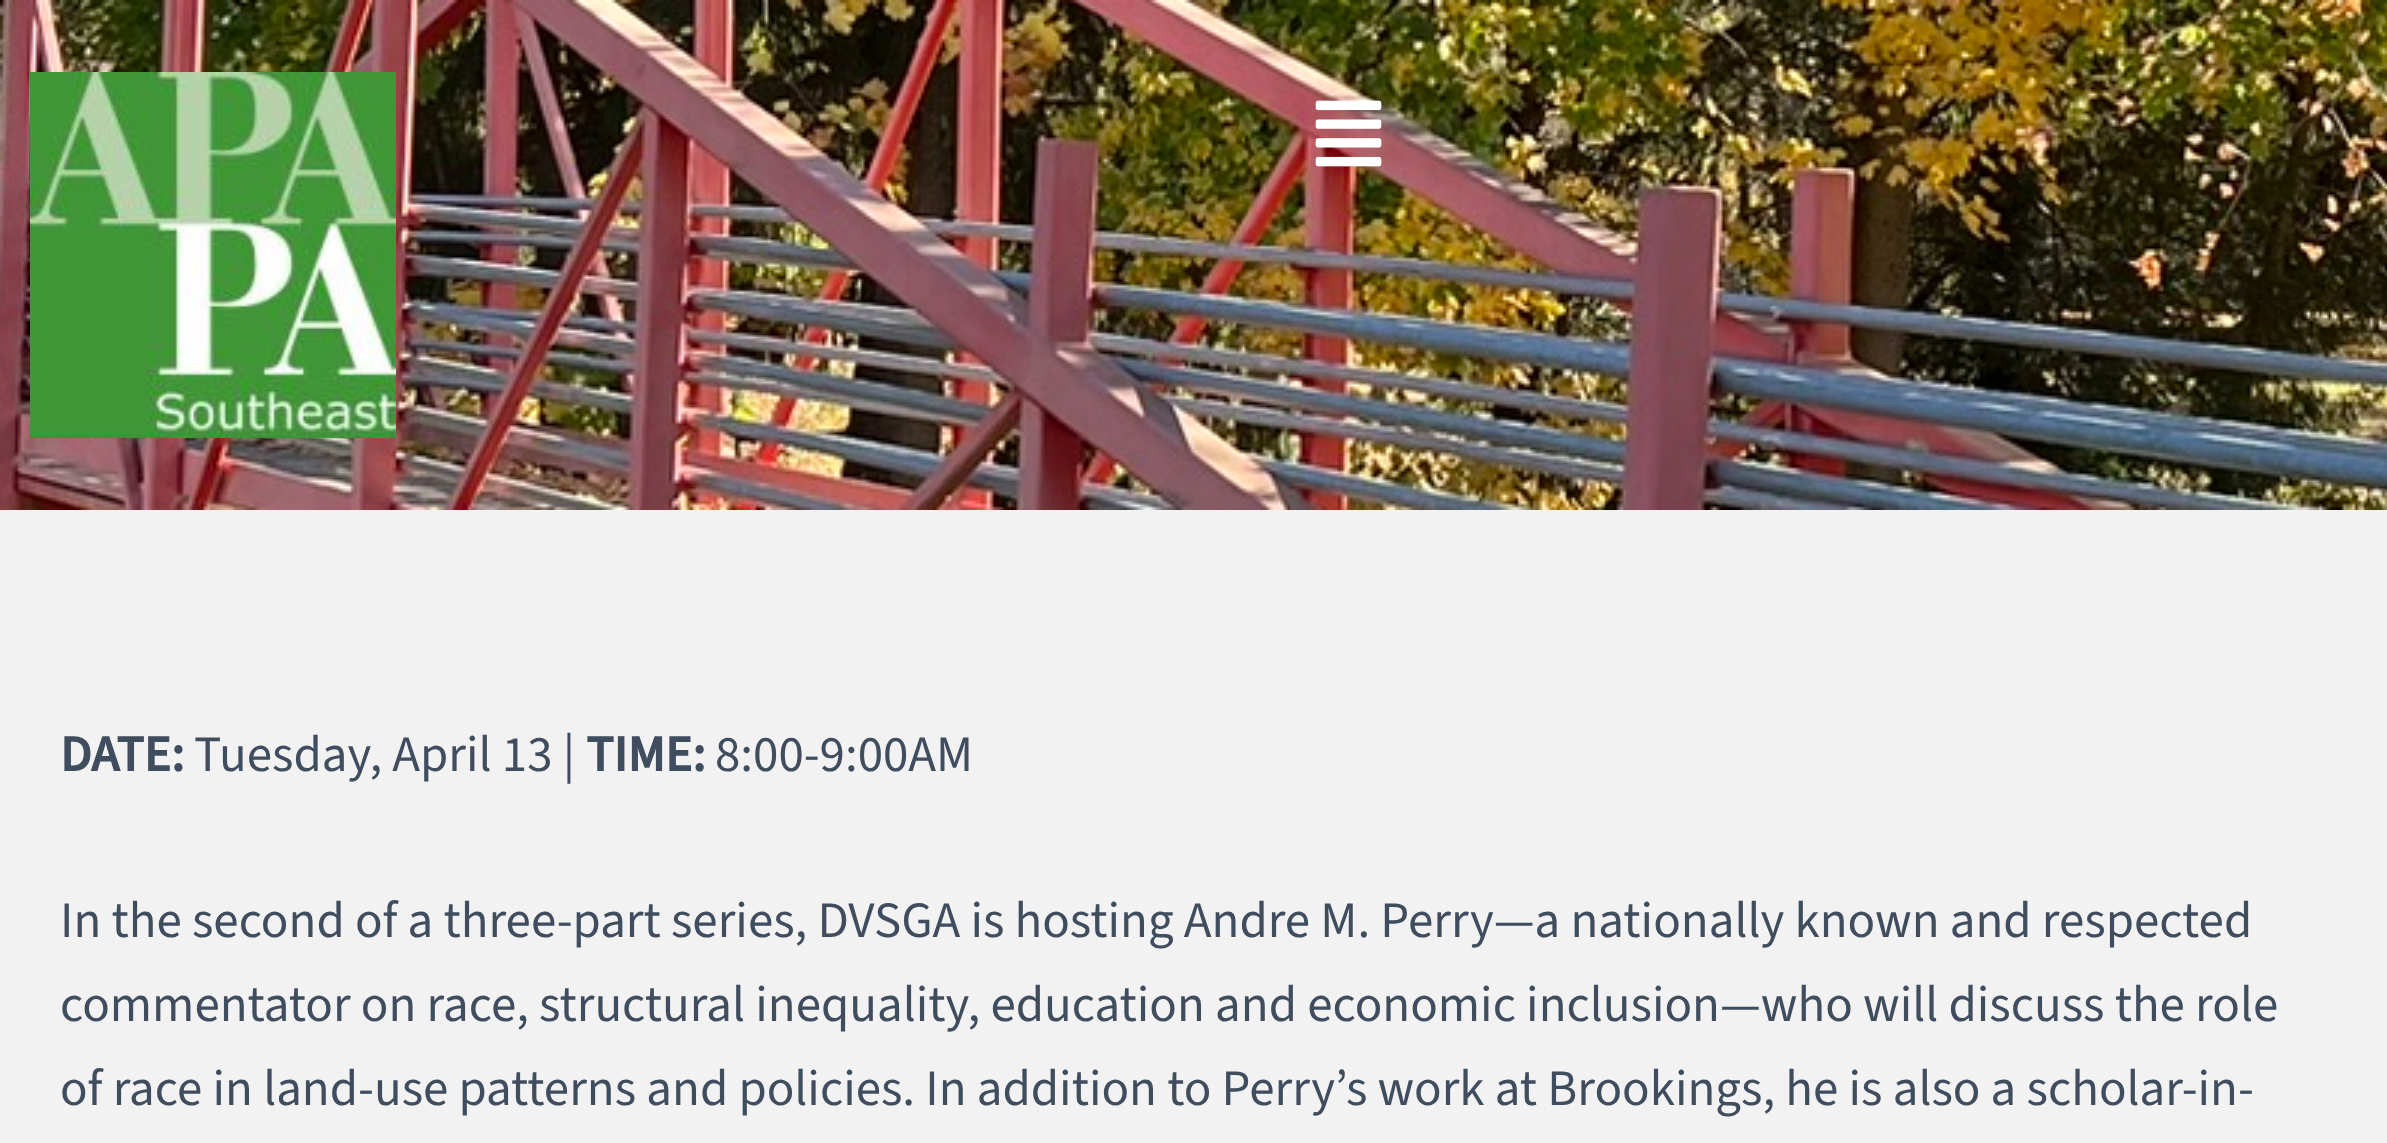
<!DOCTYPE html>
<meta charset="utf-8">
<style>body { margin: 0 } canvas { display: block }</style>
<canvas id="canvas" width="2387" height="1143"></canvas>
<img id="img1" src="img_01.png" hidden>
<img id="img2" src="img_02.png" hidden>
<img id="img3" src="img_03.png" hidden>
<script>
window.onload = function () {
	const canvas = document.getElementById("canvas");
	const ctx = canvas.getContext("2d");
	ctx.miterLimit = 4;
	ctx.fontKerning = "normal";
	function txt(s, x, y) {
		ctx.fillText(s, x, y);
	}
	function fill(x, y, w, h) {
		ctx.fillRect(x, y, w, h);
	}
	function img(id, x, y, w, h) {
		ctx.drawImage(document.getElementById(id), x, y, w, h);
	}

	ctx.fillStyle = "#F2F2F2";
	fill(0, 0, 2387, 1143);
	img("img1", 0, 0, 2387, 510);
	img("img2", 30, 72, 366, 366);
	img("img3", 1315, 100, 67, 67);
	ctx.font = "bold 51px 'Source Sans 3'";
	ctx.fillStyle = "#3F4D5F";
	txt("DATE:", 60, 771);
	ctx.font = "51px 'Source Sans 3'";
	txt("Tuesday, April 13 |", 194, 771);
	ctx.font = "bold 51px 'Source Sans 3'";
	txt("TIME:", 586, 771);
	ctx.font = "51px 'Source Sans 3'";
	txt("8:00-9:00AM", 715, 771);
	txt("In the second of a three-part series, DVSGA is hosting Andre M. Perry—a nationally known and respected", 60, 937);
	txt("commentator on race, structural inequality, education and economic inclusion—who will discuss the role", 60, 1021);
	txt("of race in land-use patterns and policies. In addition to Perry’s work at Brookings, he is also a scholar-in-", 60, 1105);
};
</script>
